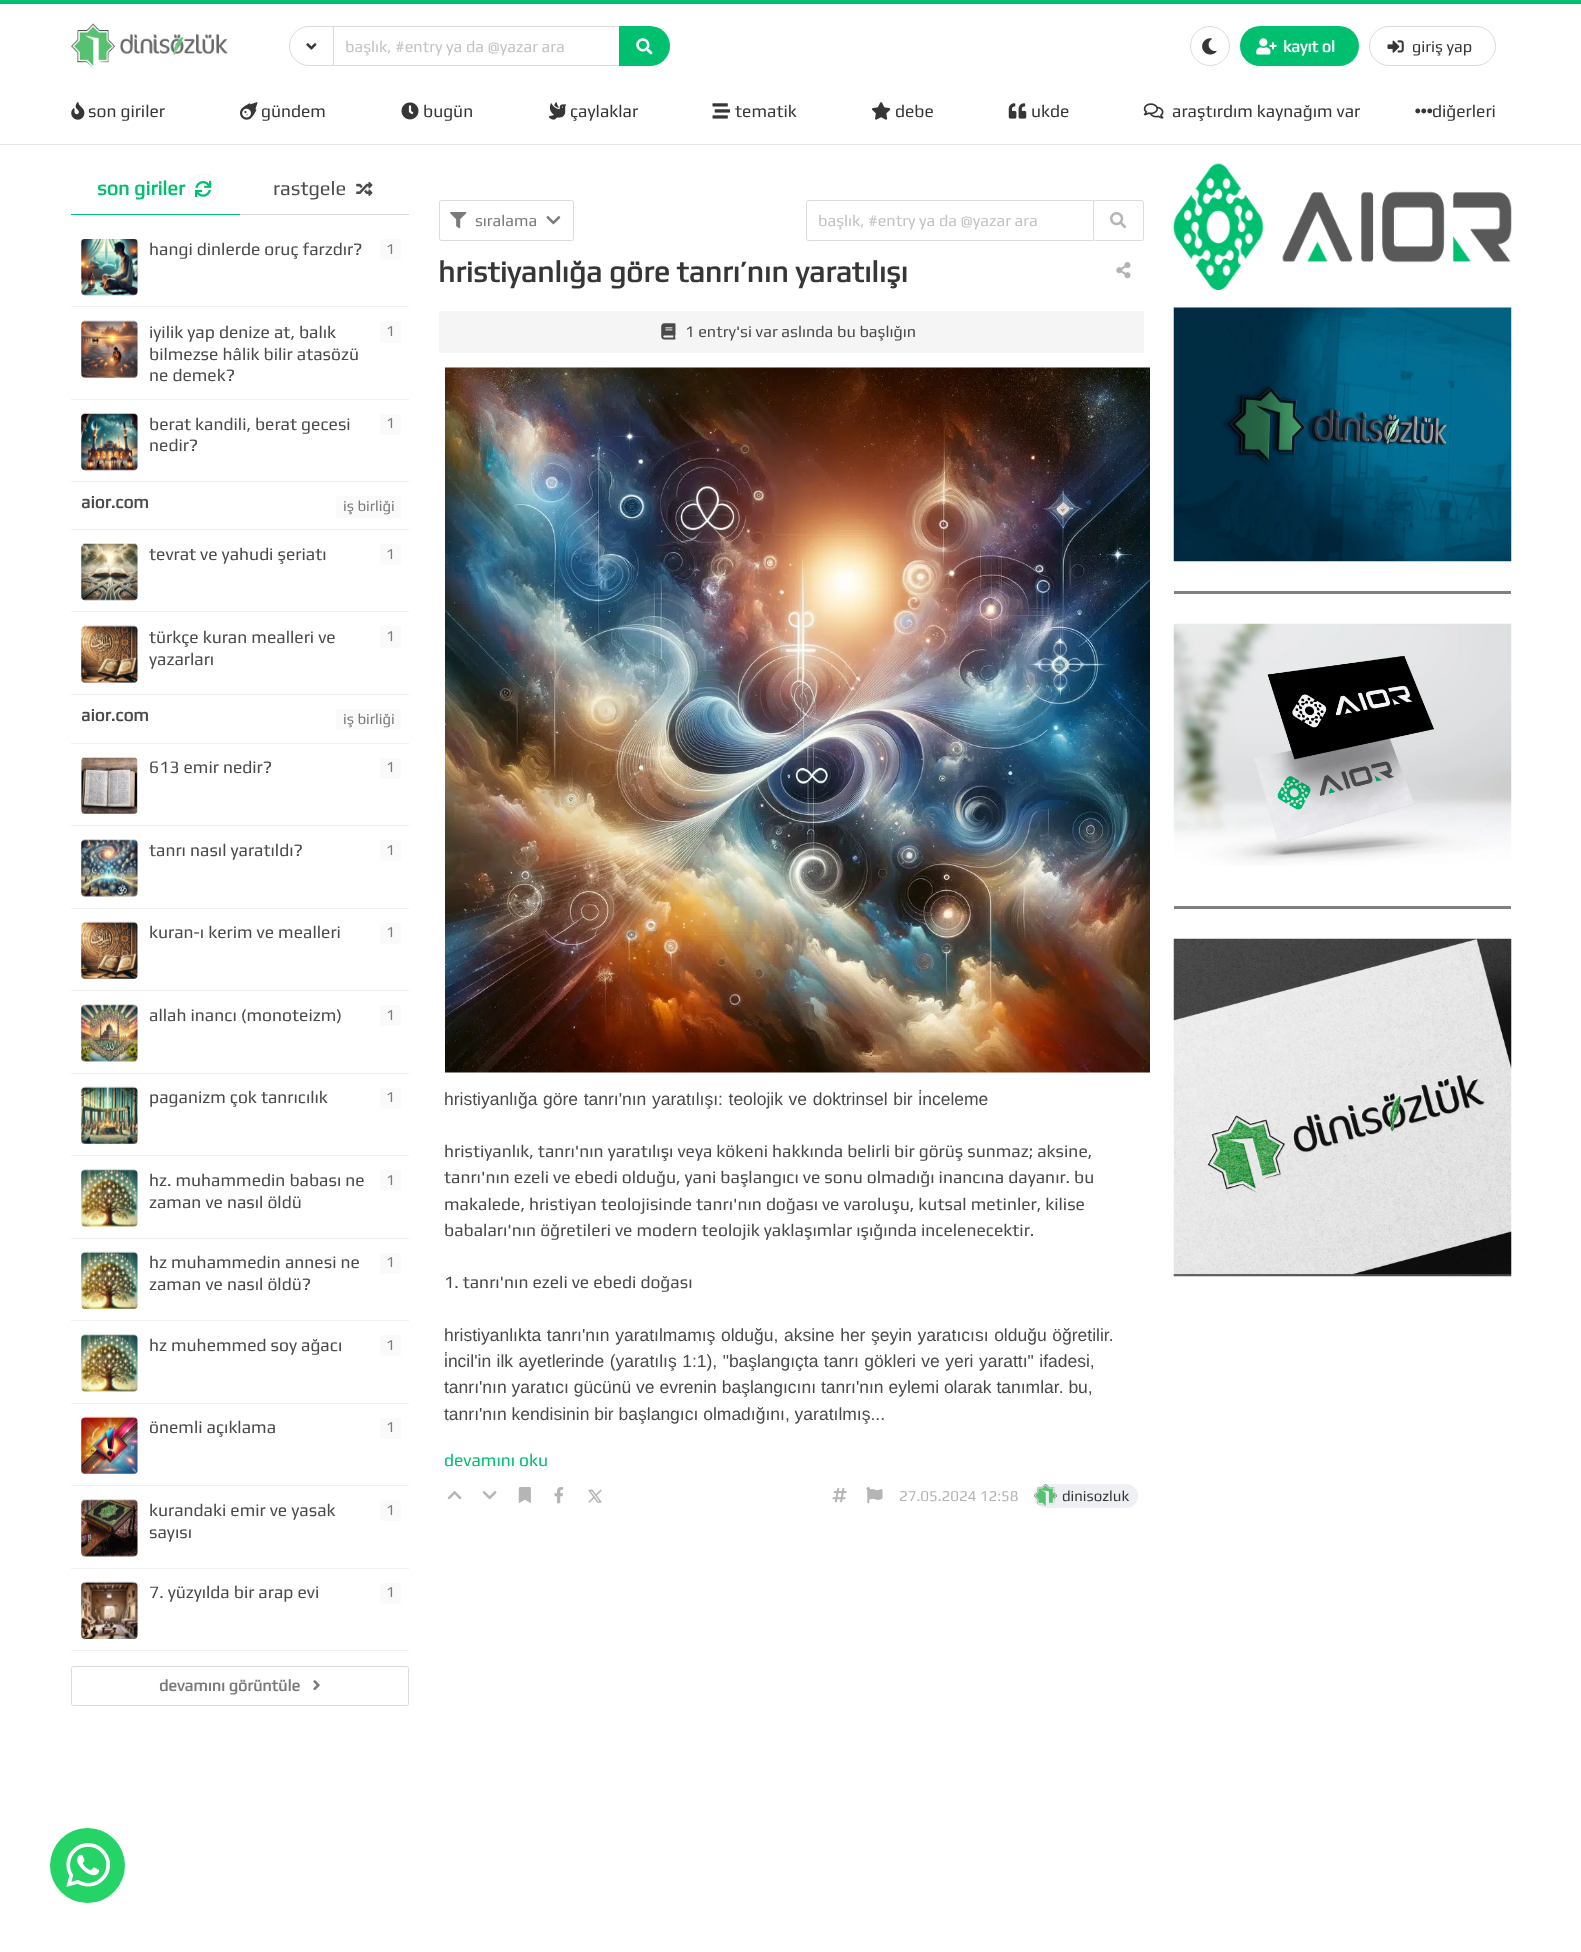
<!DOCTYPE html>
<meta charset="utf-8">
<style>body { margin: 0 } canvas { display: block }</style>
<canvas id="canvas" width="1581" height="1952"></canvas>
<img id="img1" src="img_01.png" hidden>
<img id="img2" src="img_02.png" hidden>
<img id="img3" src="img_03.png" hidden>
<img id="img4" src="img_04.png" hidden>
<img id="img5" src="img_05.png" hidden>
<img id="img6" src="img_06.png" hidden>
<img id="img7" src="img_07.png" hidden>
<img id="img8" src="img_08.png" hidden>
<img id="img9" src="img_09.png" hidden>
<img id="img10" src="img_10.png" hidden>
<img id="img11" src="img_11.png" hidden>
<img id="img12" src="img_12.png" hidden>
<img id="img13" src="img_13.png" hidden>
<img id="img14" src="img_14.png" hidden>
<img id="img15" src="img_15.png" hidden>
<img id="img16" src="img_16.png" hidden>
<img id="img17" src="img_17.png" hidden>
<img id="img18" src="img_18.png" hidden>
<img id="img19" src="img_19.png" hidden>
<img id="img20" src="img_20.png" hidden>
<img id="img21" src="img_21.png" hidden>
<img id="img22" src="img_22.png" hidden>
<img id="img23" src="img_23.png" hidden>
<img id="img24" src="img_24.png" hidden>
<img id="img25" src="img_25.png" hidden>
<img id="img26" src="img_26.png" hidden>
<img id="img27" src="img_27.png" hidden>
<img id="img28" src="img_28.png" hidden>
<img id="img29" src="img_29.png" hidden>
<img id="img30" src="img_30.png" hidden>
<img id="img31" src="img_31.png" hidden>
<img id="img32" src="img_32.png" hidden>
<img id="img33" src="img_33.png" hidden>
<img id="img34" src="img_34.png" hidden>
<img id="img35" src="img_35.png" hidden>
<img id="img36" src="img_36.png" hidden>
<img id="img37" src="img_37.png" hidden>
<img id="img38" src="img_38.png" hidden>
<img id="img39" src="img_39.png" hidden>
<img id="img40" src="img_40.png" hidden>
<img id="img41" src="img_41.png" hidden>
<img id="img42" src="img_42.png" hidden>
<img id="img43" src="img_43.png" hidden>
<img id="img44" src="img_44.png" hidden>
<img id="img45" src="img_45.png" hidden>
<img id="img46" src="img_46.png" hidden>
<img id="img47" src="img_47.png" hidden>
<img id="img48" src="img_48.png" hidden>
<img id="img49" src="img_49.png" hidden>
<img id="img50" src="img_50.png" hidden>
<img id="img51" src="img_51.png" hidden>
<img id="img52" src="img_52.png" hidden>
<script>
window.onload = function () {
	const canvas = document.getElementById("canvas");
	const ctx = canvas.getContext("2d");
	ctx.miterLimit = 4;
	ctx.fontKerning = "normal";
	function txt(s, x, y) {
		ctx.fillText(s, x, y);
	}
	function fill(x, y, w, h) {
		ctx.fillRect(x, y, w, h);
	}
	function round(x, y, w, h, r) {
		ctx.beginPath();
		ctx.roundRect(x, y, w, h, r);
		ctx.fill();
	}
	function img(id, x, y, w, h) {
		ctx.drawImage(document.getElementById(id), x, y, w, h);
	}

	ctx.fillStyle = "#FFFFFF";
	fill(0, 0, 1581, 1952);
	ctx.fillStyle = "#00BF6F";
	fill(0, 0, 1581, 4);
	ctx.fillStyle = "#E7E7E7";
	fill(0, 144, 1581, 1);
	img("img1", 71, 23, 157, 46);
	ctx.beginPath();
	ctx.roundRect(289.5, 26.5, 44, 39, [19.5, 1.5, 1.5, 19.5]);
	ctx.strokeStyle = "#DBDBDB";
	ctx.stroke();
	img("img2", 306, 43, 11, 7);
	ctx.strokeRect(333.5, 26.5, 286, 39);
	ctx.fillStyle = "#00BF6F";
	ctx.beginPath();
	ctx.roundRect(619, 26, 51, 40, [0, 20, 20, 0]);
	ctx.fill();
	img("img3", 636, 38, 17, 17);
	ctx.beginPath();
	ctx.arc(1210, 46, 19.5, 0, Math.PI * 2);
	ctx.stroke();
	img("img4", 1202, 38, 15, 17);
	round(1240, 26, 119, 40, 20);
	img("img5", 1256, 38, 21, 17);
	ctx.beginPath();
	ctx.roundRect(1369.5, 26.5, 126, 39, 19.5);
	ctx.stroke();
	img("img6", 1387, 40, 17, 13);
	img("img7", 71, 102, 14, 18);
	img("img8", 240, 102, 18, 18);
	img("img9", 401, 102, 18, 18);
	img("img10", 548, 102, 19, 18);
	img("img11", 712, 103, 18, 16);
	img("img12", 872, 102, 19, 18);
	img("img13", 1008, 103, 19, 16);
	img("img14", 1143, 103, 21, 16);
	img("img15", 1415, 108, 18, 6);
	ctx.fillStyle = "#DBDBDB";
	fill(240, 214, 169, 1);
	ctx.fillStyle = "#00BF6F";
	fill(71, 214, 169, 1);
	img("img16", 195, 180, 17, 17);
	ctx.beginPath();
	ctx.moveTo(203, 174.5);
	ctx.bezierCurveTo(222.5, 174.5, 222.5, 204, 203, 204);
	ctx.bezierCurveTo(184, 204, 184, 174.5, 203, 174.5);
	ctx.lineWidth = 0.3;
	ctx.stroke();
	ctx.beginPath();
	ctx.moveTo(203, 174.5);
	ctx.bezierCurveTo(222.5, 174.5, 222.5, 204, 203, 204);
	ctx.bezierCurveTo(184, 204, 184, 174.5, 203, 174.5);
	ctx.strokeStyle = "#00BF6F";
	ctx.lineWidth = 1.9;
	ctx.setLineDash([92.32, 92.32]);
	ctx.lineDashOffset = 92.3;
	ctx.stroke();
	img("img17", 356, 181, 17, 15);
	img("img18", 81, 239, 57, 57);
	ctx.fillStyle = "#FAFAFA";
	round(380, 239, 21, 21, 2.5);
	ctx.fillStyle = "#F0F0F0";
	fill(71, 306, 338, 1);
	img("img19", 81, 320, 57, 58);
	ctx.fillStyle = "#FAFAFA";
	round(380, 321, 21, 22, 2.5);
	ctx.fillStyle = "#F0F0F0";
	fill(71, 399, 338, 1);
	img("img20", 81, 413, 57, 58);
	ctx.fillStyle = "#FAFAFA";
	round(380, 414, 21, 21, 2.5);
	ctx.fillStyle = "#F0F0F0";
	fill(71, 481, 338, 1);
	ctx.fillStyle = "#FAFAFA";
	round(336, 496, 65, 22, 2.5);
	ctx.fillStyle = "#F0F0F0";
	fill(71, 529, 338, 1);
	img("img21", 81, 543, 57, 58);
	ctx.fillStyle = "#FAFAFA";
	round(380, 544, 21, 21, 2.5);
	ctx.fillStyle = "#F0F0F0";
	fill(71, 611, 338, 1);
	img("img22", 81, 625, 57, 58);
	ctx.fillStyle = "#FAFAFA";
	round(380, 626, 21, 22, 2.5);
	ctx.fillStyle = "#F0F0F0";
	fill(71, 694, 338, 1);
	ctx.fillStyle = "#FAFAFA";
	round(336, 709, 65, 21, 2.5);
	ctx.fillStyle = "#F0F0F0";
	fill(71, 743, 338, 1);
	img("img23", 81, 757, 57, 57);
	ctx.fillStyle = "#FAFAFA";
	round(380, 758, 21, 21, 2.5);
	ctx.fillStyle = "#F0F0F0";
	fill(71, 825, 338, 1);
	img("img24", 81, 839, 57, 58);
	ctx.fillStyle = "#FAFAFA";
	round(380, 840, 21, 21, 2.5);
	ctx.fillStyle = "#F0F0F0";
	fill(71, 908, 338, 1);
	img("img25", 81, 921, 57, 58);
	ctx.fillStyle = "#FAFAFA";
	round(380, 923, 21, 21, 2.5);
	ctx.fillStyle = "#F0F0F0";
	fill(71, 990, 338, 1);
	img("img26", 81, 1004, 57, 58);
	ctx.fillStyle = "#FAFAFA";
	round(380, 1005, 21, 21, 2.5);
	ctx.fillStyle = "#F0F0F0";
	fill(71, 1073, 338, 1);
	img("img27", 81, 1086, 57, 58);
	ctx.fillStyle = "#FAFAFA";
	round(380, 1088, 21, 21, 2.5);
	ctx.fillStyle = "#F0F0F0";
	fill(71, 1155, 338, 1);
	img("img28", 81, 1169, 57, 58);
	ctx.fillStyle = "#FAFAFA";
	round(380, 1170, 21, 21, 2.5);
	ctx.fillStyle = "#F0F0F0";
	fill(71, 1238, 338, 1);
	img("img29", 81, 1251, 57, 58);
	ctx.fillStyle = "#FAFAFA";
	round(380, 1253, 21, 21, 2.5);
	ctx.fillStyle = "#F0F0F0";
	fill(71, 1320, 338, 1);
	img("img28", 81, 1334, 57, 58);
	ctx.fillStyle = "#FAFAFA";
	round(380, 1335, 21, 21, 2.5);
	ctx.fillStyle = "#F0F0F0";
	fill(71, 1403, 338, 1);
	img("img30", 81, 1416, 57, 58);
	ctx.fillStyle = "#FAFAFA";
	round(380, 1418, 21, 21, 2.5);
	ctx.fillStyle = "#F0F0F0";
	fill(71, 1485, 338, 1);
	img("img31", 81, 1499, 57, 58);
	ctx.fillStyle = "#FAFAFA";
	round(380, 1500, 21, 21, 2.5);
	ctx.fillStyle = "#F0F0F0";
	fill(71, 1568, 338, 1);
	img("img32", 81, 1581, 57, 58);
	ctx.fillStyle = "#FAFAFA";
	round(380, 1583, 21, 21, 2.5);
	ctx.fillStyle = "#F0F0F0";
	fill(71, 1650, 338, 1);
	ctx.beginPath();
	ctx.roundRect(71.5, 1666.5, 337, 39, 2);
	ctx.strokeStyle = "#DBDBDB";
	ctx.lineWidth = 1;
	ctx.setLineDash([]);
	ctx.stroke();
	img("img33", 313, 1680, 7, 11);
	ctx.beginPath();
	ctx.roundRect(439.5, 200.5, 134, 40, 2);
	ctx.stroke();
	img("img34", 450, 212, 17, 17);
	img("img35", 546, 216, 15, 9);
	ctx.beginPath();
	ctx.roundRect(806.5, 200.5, 287, 40, [2, 0, 0, 2]);
	ctx.stroke();
	ctx.fillStyle = "#FFFFFF";
	ctx.beginPath();
	ctx.roundRect(1093.5, 200.5, 50, 40, 2);
	ctx.fill();
	ctx.stroke();
	img("img36", 1110, 212, 17, 17);
	img("img37", 1116, 262, 15, 17);
	ctx.fillStyle = "#F5F5F5";
	round(439, 311, 705, 42, 2.5);
	img("img38", 661, 323, 15, 17);
	img("img39", 445, 367, 705, 706);
	img("img40", 447, 1491, 15, 9);
	img("img41", 482, 1491, 15, 9);
	img("img42", 518, 1487, 13, 17);
	img("img43", 554, 1487, 10, 17);
	img("img44", 588, 1489, 14, 14);
	img("img45", 832, 1488, 15, 15);
	img("img46", 866, 1487, 17, 17);
	ctx.fillStyle = "#EEF0F3";
	round(1034, 1484, 104, 24, 12);
	img("img47", 1034, 1484, 24, 23);
	img("img48", 1173, 163, 339, 127);
	img("img49", 1173, 307, 339, 255);
	ctx.fillStyle = "#808080";
	fill(1174, 591, 337, 3);
	img("img50", 1173, 623, 339, 243);
	fill(1174, 906, 337, 3);
	img("img51", 1173, 938, 339, 339);
	ctx.fillStyle = "#25D366";
	ctx.beginPath();
	ctx.arc(87.5, 1865.5, 37.5, 0, Math.PI * 2);
	ctx.fill();
	img("img52", 66, 1843, 44, 44);
	ctx.font = "16.25px Play";
	ctx.fillStyle = "#C3C3C3";
	txt("başlık, #entry ya da @yazar ara", 345, 52);
	ctx.font = "bold 16.25px Play";
	ctx.fillStyle = "#FFFFFF";
	txt("kayıt ol", 1283, 52);
	ctx.font = "16.25px Play";
	ctx.fillStyle = "#363636";
	txt("giriş yap", 1412, 52);
	ctx.font = "17.5px Play";
	txt("son giriler", 88, 117);
	txt("gündem", 261, 117);
	txt("bugün", 423, 117);
	txt("çaylaklar", 570, 117);
	txt("tematik", 735, 117);
	txt("debe", 895, 117);
	txt("ukde", 1031, 117);
	txt("araştırdım kaynağım var", 1172, 117);
	txt("diğerleri", 1432, 117);
	ctx.font = "bold 20px Play";
	ctx.fillStyle = "#00BF6F";
	txt("son giriler", 97, 195);
	ctx.font = "20px Play";
	ctx.fillStyle = "#4A4A4A";
	txt("rastgele", 273, 195);
	ctx.font = "17.5px Play";
	txt("hangi dinlerde oruç farzdır?", 149, 255);
	ctx.font = "15px Play";
	ctx.fillStyle = "#7A7A7A";
	txt("1", 386, 254);
	ctx.font = "17.5px Play";
	ctx.fillStyle = "#4A4A4A";
	txt("iyilik yap denize at, balık", 149, 338);
	ctx.font = "15px Play";
	ctx.fillStyle = "#7A7A7A";
	txt("1", 386, 336);
	ctx.font = "17.5px Play";
	ctx.fillStyle = "#4A4A4A";
	txt("bilmezse hâlik bilir atasözü", 149, 360);
	txt("ne demek?", 149, 381);
	txt("berat kandili, berat gecesi", 149, 430);
	ctx.font = "15px Play";
	ctx.fillStyle = "#7A7A7A";
	txt("1", 386, 428);
	ctx.font = "17.5px Play";
	ctx.fillStyle = "#4A4A4A";
	txt("nedir?", 149, 451);
	ctx.font = "bold 17.5px Play";
	txt("aior.com", 81, 508);
	ctx.font = "15px Play";
	ctx.fillStyle = "#7A7A7A";
	txt("iş birliği", 343, 511);
	ctx.font = "17.5px Play";
	ctx.fillStyle = "#4A4A4A";
	txt("tevrat ve yahudi şeriatı", 149, 560);
	ctx.font = "15px Play";
	ctx.fillStyle = "#7A7A7A";
	txt("1", 386, 559);
	ctx.font = "17.5px Play";
	ctx.fillStyle = "#4A4A4A";
	txt("türkçe kuran mealleri ve", 149, 643);
	ctx.font = "15px Play";
	ctx.fillStyle = "#7A7A7A";
	txt("1", 386, 641);
	ctx.font = "17.5px Play";
	ctx.fillStyle = "#4A4A4A";
	txt("yazarları", 149, 665);
	ctx.font = "bold 17.5px Play";
	txt("aior.com", 81, 721);
	ctx.font = "15px Play";
	ctx.fillStyle = "#7A7A7A";
	txt("iş birliği", 343, 724);
	ctx.font = "17.5px Play";
	ctx.fillStyle = "#4A4A4A";
	txt("613 emir nedir?", 149, 773);
	ctx.font = "15px Play";
	ctx.fillStyle = "#7A7A7A";
	txt("1", 386, 772);
	ctx.font = "17.5px Play";
	ctx.fillStyle = "#4A4A4A";
	txt("tanrı nasıl yaratıldı?", 149, 856);
	ctx.font = "15px Play";
	ctx.fillStyle = "#7A7A7A";
	txt("1", 386, 855);
	ctx.font = "17.5px Play";
	ctx.fillStyle = "#4A4A4A";
	txt("kuran-ı kerim ve mealleri", 149, 938);
	ctx.font = "15px Play";
	ctx.fillStyle = "#7A7A7A";
	txt("1", 386, 937);
	ctx.font = "17.5px Play";
	ctx.fillStyle = "#4A4A4A";
	txt("allah inancı (monoteizm)", 149, 1021);
	ctx.font = "15px Play";
	ctx.fillStyle = "#7A7A7A";
	txt("1", 386, 1020);
	ctx.font = "17.5px Play";
	ctx.fillStyle = "#4A4A4A";
	txt("paganizm çok tanrıcılık", 149, 1103);
	ctx.font = "15px Play";
	ctx.fillStyle = "#7A7A7A";
	txt("1", 386, 1102);
	ctx.font = "17.5px Play";
	ctx.fillStyle = "#4A4A4A";
	txt("hz. muhammedin babası ne", 149, 1186);
	ctx.font = "15px Play";
	ctx.fillStyle = "#7A7A7A";
	txt("1", 386, 1185);
	ctx.font = "17.5px Play";
	ctx.fillStyle = "#4A4A4A";
	txt("zaman ve nasıl öldü", 149, 1208);
	txt("hz muhammedin annesi ne", 149, 1268);
	ctx.font = "15px Play";
	ctx.fillStyle = "#7A7A7A";
	txt("1", 386, 1267);
	ctx.font = "17.5px Play";
	ctx.fillStyle = "#4A4A4A";
	txt("zaman ve nasıl öldü?", 149, 1290);
	txt("hz muhemmed soy ağacı", 149, 1351);
	ctx.font = "15px Play";
	ctx.fillStyle = "#7A7A7A";
	txt("1", 386, 1350);
	ctx.font = "17.5px Play";
	ctx.fillStyle = "#4A4A4A";
	txt("önemli açıklama", 149, 1433);
	ctx.font = "15px Play";
	ctx.fillStyle = "#7A7A7A";
	txt("1", 386, 1432);
	ctx.font = "17.5px Play";
	ctx.fillStyle = "#4A4A4A";
	txt("kurandaki emir ve yasak", 149, 1516);
	ctx.font = "15px Play";
	ctx.fillStyle = "#7A7A7A";
	txt("1", 386, 1515);
	ctx.font = "17.5px Play";
	ctx.fillStyle = "#4A4A4A";
	txt("sayısı", 149, 1538);
	txt("7. yüzyılda bir arap evi", 149, 1598);
	ctx.font = "15px Play";
	ctx.fillStyle = "#7A7A7A";
	txt("1", 386, 1597);
	ctx.font = "bold 16.25px Play";
	txt("devamını görüntüle", 159, 1691);
	ctx.font = "16.25px Play";
	txt("sıralama", 475, 226);
	ctx.fillStyle = "#C3C3C3";
	txt("başlık, #entry ya da @yazar ara", 818, 226);
	ctx.font = "bold 30px Play";
	ctx.fillStyle = "#363636";
	txt("hristiyanlığa göre tanrı’nın yaratılışı", 438, 282);
	ctx.font = "16.25px Play";
	ctx.fillStyle = "#4A4A4A";
	txt("1 entry'si var aslında bu başlığın", 685, 337);
	ctx.wordSpacing = "0.75px";
	ctx.font = "17.5px Liberation Sans";
	txt("hristiyanlığa göre tanrı'nın yaratılışı: teolojik ve doktrinsel bir i̇nceleme", 444, 1105);
	ctx.wordSpacing = "0px";
	ctx.font = "17.5px Play";
	txt("hristiyanlık, tanrı'nın yaratılışı veya kökeni hakkında belirli bir görüş sunmaz; aksine,", 444, 1157);
	txt("tanrı'nın ezeli ve ebedi olduğu, yani başlangıcı ve sonu olmadığı inancına dayanır. bu", 444, 1183);
	txt("makalede, hristiyan teolojisinde tanrı'nın doğası ve varoluşu, kutsal metinler, kilise", 444, 1210);
	txt("babaları'nın öğretileri ve modern teolojik yaklaşımlar ışığında incelenecektir.", 444, 1236);
	txt("1. tanrı'nın ezeli ve ebedi doğası", 444, 1288);
	ctx.wordSpacing = "0.75px";
	ctx.font = "17.5px Liberation Sans";
	txt("hristiyanlıkta tanrı'nın yaratılmamış olduğu, aksine her şeyin yaratıcısı olduğu öğretilir.", 444, 1341);
	ctx.wordSpacing = "0.6px";
	txt("i̇ncil'in ilk ayetlerinde (yaratılış 1:1), \"başlangıçta tanrı gökleri ve yeri yarattı\" ifadesi,", 444, 1367);
	ctx.wordSpacing = "0px";
	txt("tanrı'nın yaratıcı gücünü ve evrenin başlangıcını tanrı'nın eylemi olarak tanımlar. bu,", 444, 1393);
	txt("tanrı'nın kendisinin bir başlangıcı olmadığını, yaratılmış...", 444, 1420);
	ctx.font = "17.5px Play";
	ctx.fillStyle = "#00BF6F";
	txt("devamını oku", 444, 1466);
	ctx.font = "15px Play";
	ctx.fillStyle = "#B5B5B5";
	txt("27.05.2024 12:58", 899, 1501);
	ctx.fillStyle = "#363636";
	txt("dinisozluk", 1062, 1501);
};
</script>
